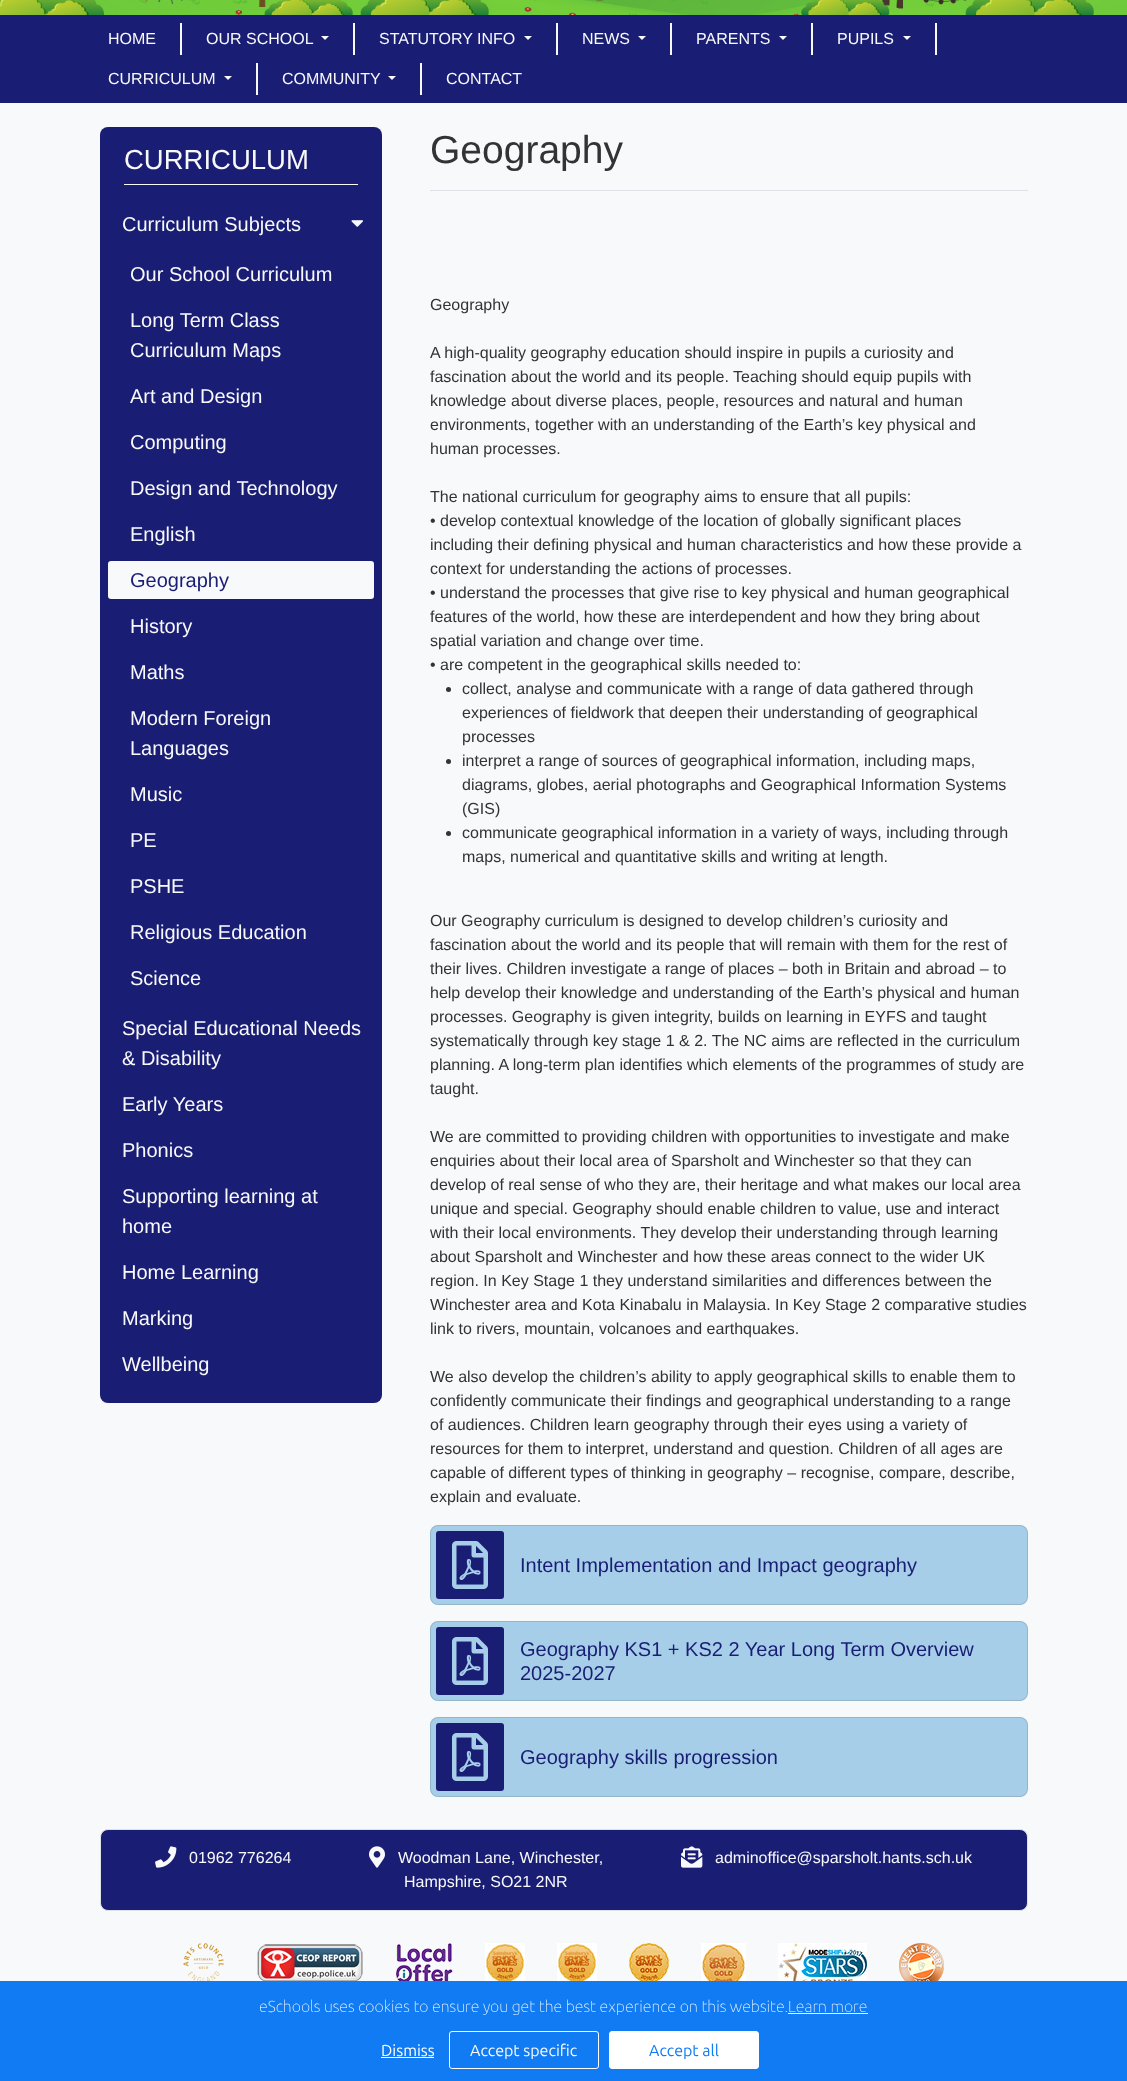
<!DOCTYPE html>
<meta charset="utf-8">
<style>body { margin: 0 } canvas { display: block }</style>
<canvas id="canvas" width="1127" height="2081"></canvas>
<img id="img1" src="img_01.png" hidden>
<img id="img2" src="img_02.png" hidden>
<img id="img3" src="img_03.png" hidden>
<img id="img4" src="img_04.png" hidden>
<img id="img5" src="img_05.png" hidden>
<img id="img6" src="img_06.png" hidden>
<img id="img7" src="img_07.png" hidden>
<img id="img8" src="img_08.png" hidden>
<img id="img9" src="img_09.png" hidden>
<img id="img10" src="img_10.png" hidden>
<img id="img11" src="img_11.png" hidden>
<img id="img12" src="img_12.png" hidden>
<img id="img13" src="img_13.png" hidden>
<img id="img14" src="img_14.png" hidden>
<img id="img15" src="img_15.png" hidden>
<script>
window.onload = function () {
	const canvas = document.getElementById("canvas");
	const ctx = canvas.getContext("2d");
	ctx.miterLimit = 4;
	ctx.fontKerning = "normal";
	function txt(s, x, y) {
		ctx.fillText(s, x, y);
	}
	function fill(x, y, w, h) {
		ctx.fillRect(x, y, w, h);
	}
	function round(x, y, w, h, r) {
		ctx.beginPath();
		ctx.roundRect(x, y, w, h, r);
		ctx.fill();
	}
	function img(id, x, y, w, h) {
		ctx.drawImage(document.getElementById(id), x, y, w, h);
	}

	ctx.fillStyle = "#F8F9FA";
	fill(0, 0, 1127, 2081);
	img("img1", 0, 0, 1127, 15);
	ctx.fillStyle = "#191D74";
	fill(0, 15, 1127, 88);
	ctx.fillStyle = "#F8F9FA";
	fill(180, 23, 2, 32);
	fill(353, 23, 2, 32);
	ctx.beginPath();
	ctx.moveTo(321, 36);
	ctx.lineTo(329, 36);
	ctx.lineTo(325, 40);
	ctx.closePath();
	ctx.fill();
	fill(556, 23, 2, 32);
	ctx.beginPath();
	ctx.moveTo(524, 36);
	ctx.lineTo(532, 36);
	ctx.lineTo(528, 40);
	ctx.closePath();
	ctx.fill();
	fill(670, 23, 2, 32);
	ctx.beginPath();
	ctx.moveTo(638, 36);
	ctx.lineTo(646, 36);
	ctx.lineTo(642, 40);
	ctx.closePath();
	ctx.fill();
	fill(811, 23, 2, 32);
	ctx.beginPath();
	ctx.moveTo(779, 36);
	ctx.lineTo(787, 36);
	ctx.lineTo(783, 40);
	ctx.closePath();
	ctx.fill();
	fill(935, 23, 2, 32);
	ctx.beginPath();
	ctx.moveTo(903, 36);
	ctx.lineTo(911, 36);
	ctx.lineTo(907, 40);
	ctx.closePath();
	ctx.fill();
	fill(256, 63, 2, 32);
	ctx.beginPath();
	ctx.moveTo(224, 76);
	ctx.lineTo(232, 76);
	ctx.lineTo(228, 80);
	ctx.closePath();
	ctx.fill();
	fill(420, 63, 2, 32);
	ctx.beginPath();
	ctx.moveTo(388, 76);
	ctx.lineTo(396, 76);
	ctx.lineTo(392, 80);
	ctx.closePath();
	ctx.fill();
	ctx.fillStyle = "#191D74";
	round(100, 127, 282, 1276, 8);
	ctx.fillStyle = "#F8F9FA";
	fill(124, 184, 234, 1);
	img("img2", 351, 220, 12, 7);
	round(108, 561, 266, 38, 3);
	ctx.fillStyle = "#DEE2E6";
	fill(430, 190, 598, 1);
	ctx.fillStyle = "#333333";
	ctx.beginPath();
	ctx.arc(448.5, 689.5, 2.5, 0, Math.PI * 2);
	ctx.fill();
	ctx.beginPath();
	ctx.arc(448.5, 761.5, 2.5, 0, Math.PI * 2);
	ctx.fill();
	ctx.beginPath();
	ctx.arc(448.5, 833.5, 2.5, 0, Math.PI * 2);
	ctx.fill();
	ctx.fillStyle = "#A7CEE8";
	round(430, 1525, 598, 80, 8);
	ctx.beginPath();
	ctx.roundRect(430.5, 1525.5, 597, 79, 7.5);
	ctx.strokeStyle = "rgba(0, 0, 0, 0.12)";
	ctx.stroke();
	ctx.fillStyle = "#191D74";
	round(436, 1531, 68, 68, 3);
	img("img3", 452, 1541, 36, 48);
	ctx.fillStyle = "#A7CEE8";
	round(430, 1621, 598, 80, 8);
	ctx.beginPath();
	ctx.roundRect(430.5, 1621.5, 597, 79, 7.5);
	ctx.stroke();
	ctx.fillStyle = "#191D74";
	round(436, 1627, 68, 68, 3);
	img("img3", 452, 1637, 36, 48);
	ctx.fillStyle = "#A7CEE8";
	round(430, 1717, 598, 80, 8);
	ctx.beginPath();
	ctx.roundRect(430.5, 1717.5, 597, 79, 7.5);
	ctx.stroke();
	ctx.fillStyle = "#191D74";
	round(436, 1723, 68, 68, 3);
	img("img3", 452, 1733, 36, 48);
	ctx.beginPath();
	ctx.roundRect(100.5, 1829.5, 927, 81, 7.5);
	ctx.fill();
	ctx.strokeStyle = "#DEE2E6";
	ctx.stroke();
	img("img4", 155, 1846, 22, 22);
	img("img5", 369, 1846, 16, 22);
	img("img6", 681, 1846, 22, 22);
	img("img7", 183, 1943, 41, 38);
	img("img8", 257, 1944, 106, 37);
	img("img9", 396, 1943, 57, 38);
	img("img10", 485, 1943, 40, 38);
	img("img11", 557, 1943, 40, 38);
	img("img12", 629, 1943, 40, 38);
	img("img13", 701, 1943, 45, 38);
	img("img14", 778, 1943, 89, 38);
	img("img15", 899, 1943, 45, 38);
	ctx.fillStyle = "#117BF3";
	fill(0, 1981, 1127, 100);
	ctx.fillStyle = "#F7F7F7";
	fill(788, 2013, 80, 1);
	ctx.fillStyle = "#FFFFFF";
	fill(381, 2057, 53, 1);
	ctx.beginPath();
	ctx.roundRect(449.5, 2031.5, 149, 37, 2.5);
	ctx.strokeStyle = "#FFFFFF";
	ctx.stroke();
	ctx.beginPath();
	ctx.roundRect(609.5, 2031.5, 149, 37, 2.5);
	ctx.fill();
	ctx.stroke();
	ctx.font = "16px Liberation Sans";
	ctx.fillStyle = "#F8F9FA";
	txt("HOME", 108, 44);
	txt("OUR SCHOOL", 206, 44);
	txt("STATUTORY INFO", 379, 44);
	txt("NEWS", 582, 44);
	txt("PARENTS", 696, 44);
	txt("PUPILS", 837, 44);
	txt("CURRICULUM", 108, 84);
	txt("COMMUNITY", 282, 84);
	txt("CONTACT", 446, 84);
	ctx.font = "27.5px Liberation Sans";
	txt("CURRICULUM", 124, 169);
	ctx.font = "20px Liberation Sans";
	txt("Curriculum Subjects", 122, 231);
	txt("Our School Curriculum", 130, 281);
	txt("Long Term Class", 130, 327);
	txt("Curriculum Maps", 130, 357);
	txt("Art and Design", 130, 403);
	txt("Computing", 130, 449);
	txt("Design and Technology", 130, 495);
	txt("English", 130, 541);
	ctx.fillStyle = "#191D74";
	txt("Geography", 130, 587);
	ctx.fillStyle = "#F8F9FA";
	txt("History", 130, 633);
	txt("Maths", 130, 679);
	txt("Modern Foreign", 130, 725);
	txt("Languages", 130, 755);
	txt("Music", 130, 801);
	txt("PE", 130, 847);
	txt("PSHE", 130, 893);
	txt("Religious Education", 130, 939);
	txt("Science", 130, 985);
	txt("Special Educational Needs", 122, 1035);
	txt("& Disability", 122, 1065);
	txt("Early Years", 122, 1111);
	txt("Phonics", 122, 1157);
	txt("Supporting learning at", 122, 1203);
	txt("home", 122, 1233);
	txt("Home Learning", 122, 1279);
	txt("Marking", 122, 1325);
	txt("Wellbeing", 122, 1371);
	ctx.font = "39px Liberation Sans";
	ctx.fillStyle = "#333333";
	txt("Geography", 430, 163);
	ctx.font = "16px Liberation Sans";
	txt("Geography", 430, 310);
	txt("A high-quality geography education should inspire in pupils a curiosity and", 430, 358);
	txt("fascination about the world and its people. Teaching should equip pupils with", 430, 382);
	txt("knowledge about diverse places, people, resources and natural and human", 430, 406);
	txt("environments, together with an understanding of the Earth’s key physical and", 430, 430);
	txt("human processes.", 430, 454);
	txt("The national curriculum for geography aims to ensure that all pupils:", 430, 502);
	txt("• develop contextual knowledge of the location of globally significant places", 430, 526);
	txt("including their defining physical and human characteristics and how these provide a", 430, 550);
	txt("context for understanding the actions of processes.", 430, 574);
	txt("• understand the processes that give rise to key physical and human geographical", 430, 598);
	txt("features of the world, how these are interdependent and how they bring about", 430, 622);
	txt("spatial variation and change over time.", 430, 646);
	txt("• are competent in the geographical skills needed to:", 430, 670);
	txt("collect, analyse and communicate with a range of data gathered through", 462, 694);
	txt("experiences of fieldwork that deepen their understanding of geographical", 462, 718);
	txt("processes", 462, 742);
	txt("interpret a range of sources of geographical information, including maps,", 462, 766);
	txt("diagrams, globes, aerial photographs and Geographical Information Systems", 462, 790);
	txt("(GIS)", 462, 814);
	txt("communicate geographical information in a variety of ways, including through", 462, 838);
	txt("maps, numerical and quantitative skills and writing at length.", 462, 862);
	txt("Our Geography curriculum is designed to develop children’s curiosity and", 430, 926);
	txt("fascination about the world and its people that will remain with them for the rest of", 430, 950);
	txt("their lives. Children investigate a range of places – both in Britain and abroad – to", 430, 974);
	txt("help develop their knowledge and understanding of the Earth’s physical and human", 430, 998);
	txt("processes. Geography is given integrity, builds on learning in EYFS and taught", 430, 1022);
	txt("systematically through key stage 1 & 2. The NC aims are reflected in the curriculum", 430, 1046);
	txt("planning. A long-term plan identifies which elements of the programmes of study are", 430, 1070);
	txt("taught.", 430, 1094);
	txt("We are committed to providing children with opportunities to investigate and make", 430, 1142);
	txt("enquiries about their local area of Sparsholt and Winchester so that they can", 430, 1166);
	txt("develop of real sense of who they are, their heritage and what makes our local area", 430, 1190);
	txt("unique and special. Geography should enable children to value, use and interact", 430, 1214);
	txt("with their local environments. They develop their understanding through learning", 430, 1238);
	txt("about Sparsholt and Winchester and how these areas connect to the wider UK", 430, 1262);
	txt("region. In Key Stage 1 they understand similarities and differences between the", 430, 1286);
	txt("Winchester area and Kota Kinabalu in Malaysia. In Key Stage 2 comparative studies", 430, 1310);
	txt("link to rivers, mountain, volcanoes and earthquakes.", 430, 1334);
	txt("We also develop the children’s ability to apply geographical skills to enable them to", 430, 1382);
	txt("confidently communicate their findings and geographical understanding to a range", 430, 1406);
	txt("of audiences. Children learn geography through their eyes using a variety of", 430, 1430);
	txt("resources for them to interpret, understand and question. Children of all ages are", 430, 1454);
	txt("capable of different types of thinking in geography – recognise, compare, describe,", 430, 1478);
	txt("explain and evaluate.", 430, 1502);
	ctx.font = "20px Liberation Sans";
	ctx.fillStyle = "#191D74";
	txt("Intent Implementation and Impact geography", 520, 1572);
	txt("Geography KS1 + KS2 2 Year Long Term Overview", 520, 1656);
	txt("2025-2027", 520, 1680);
	txt("Geography skills progression", 520, 1764);
	ctx.font = "16px Liberation Sans";
	ctx.fillStyle = "#F8F9FA";
	txt("01962 776264", 189, 1863);
	txt("Woodman Lane, Winchester,", 398, 1863);
	txt("Hampshire, SO21 2NR", 404, 1887);
	txt("adminoffice@sparsholt.hants.sch.uk", 715, 1863);
	ctx.font = "100 16px Ubuntu";
	ctx.fillStyle = "#FFFFFF";
	txt("eSchools uses cookies to ensure you get the best experience on this website.", 259, 2012);
	ctx.fillStyle = "#F8F9FA";
	txt("Learn more", 788, 2012);
	ctx.font = "16px Ubuntu";
	ctx.fillStyle = "#FFFFFF";
	txt("Dismiss", 381, 2056);
	ctx.fillStyle = "#F8F9FA";
	txt("Accept specific", 470, 2056);
	ctx.fillStyle = "#117BF3";
	txt("Accept all", 649, 2056);
};
</script>
